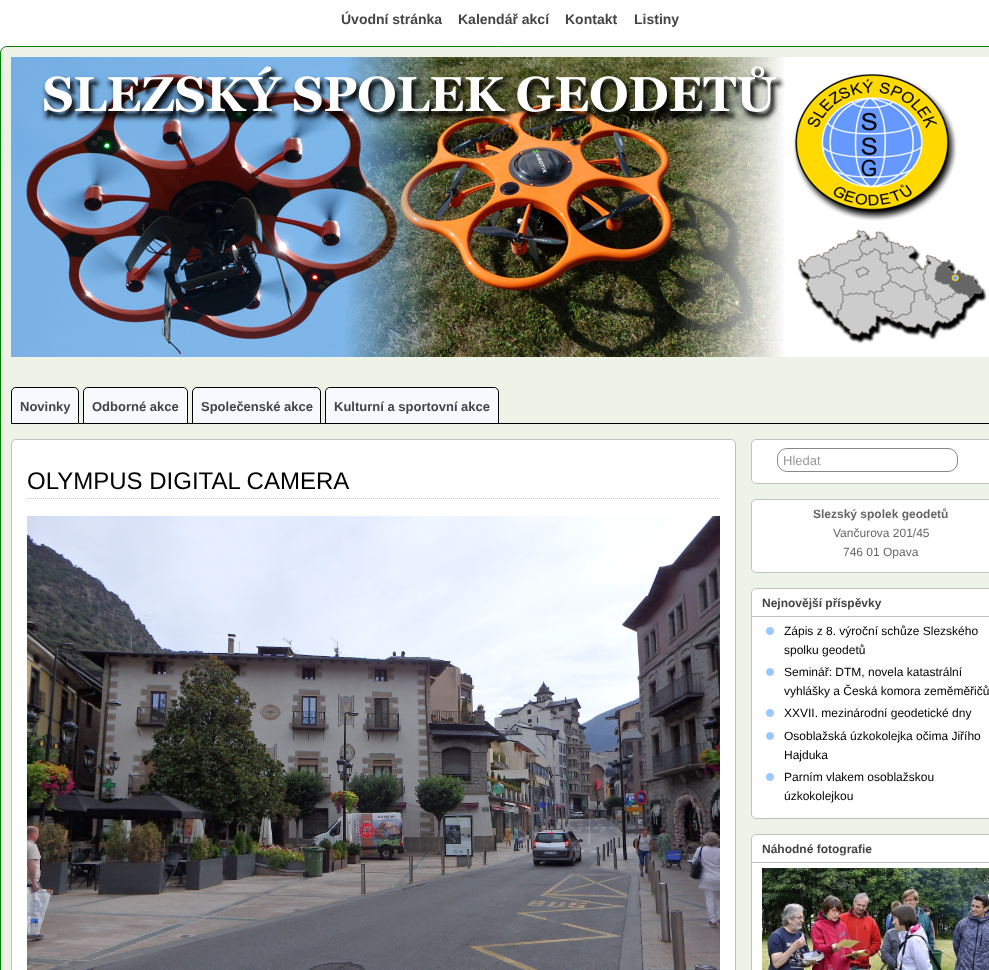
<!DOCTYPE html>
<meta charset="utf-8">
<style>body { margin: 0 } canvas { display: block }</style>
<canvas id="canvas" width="989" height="970"></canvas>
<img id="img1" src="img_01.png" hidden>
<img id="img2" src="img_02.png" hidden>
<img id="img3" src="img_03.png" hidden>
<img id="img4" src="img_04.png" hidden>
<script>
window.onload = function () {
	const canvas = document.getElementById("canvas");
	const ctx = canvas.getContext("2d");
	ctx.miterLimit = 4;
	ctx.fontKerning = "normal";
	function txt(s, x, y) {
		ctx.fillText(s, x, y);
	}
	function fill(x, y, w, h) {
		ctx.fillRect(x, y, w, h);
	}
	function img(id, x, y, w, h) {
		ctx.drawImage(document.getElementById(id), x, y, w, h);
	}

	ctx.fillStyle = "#FFFFFF";
	fill(0, 0, 989, 970);
	ctx.fillStyle = "#EDF3E6";
	ctx.beginPath();
	ctx.roundRect(0.5, 46.5, 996, 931, 6.5);
	ctx.fill();
	ctx.strokeStyle = "#008000";
	ctx.stroke();
	img("img1", 11, 57, 978, 300);
	ctx.fillStyle = "#000000";
	fill(79, 423, 910, 1);
	ctx.beginPath();
	ctx.roundRect(11.5, 387.5, 67, 36, [4.5, 4.5, 0, 0]);
	ctx.strokeStyle = "#000000";
	ctx.stroke();
	ctx.fillStyle = "#F8F8FF";
	ctx.beginPath();
	ctx.roundRect(12, 388, 66, 35, [5, 5, 0, 0]);
	ctx.fill();
	ctx.beginPath();
	ctx.roundRect(83.5, 387.5, 104, 36, [4.5, 4.5, 0, 0]);
	ctx.stroke();
	ctx.beginPath();
	ctx.roundRect(84, 388, 103, 35, [5, 5, 0, 0]);
	ctx.fill();
	ctx.beginPath();
	ctx.roundRect(192.5, 387.5, 128, 36, [4.5, 4.5, 0, 0]);
	ctx.stroke();
	ctx.beginPath();
	ctx.roundRect(193, 388, 127, 35, [5, 5, 0, 0]);
	ctx.fill();
	ctx.beginPath();
	ctx.roundRect(325.5, 387.5, 173, 36, [4.5, 4.5, 0, 0]);
	ctx.stroke();
	ctx.beginPath();
	ctx.roundRect(326, 388, 172, 35, [5, 5, 0, 0]);
	ctx.fill();
	ctx.fillStyle = "#FFFFFF";
	ctx.beginPath();
	ctx.roundRect(11.5, 439.5, 724, 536, 4.5);
	ctx.fill();
	ctx.strokeStyle = "#C0C0C0";
	ctx.stroke();
	ctx.beginPath();
	ctx.moveTo(27, 498.5);
	ctx.lineTo(720, 498.5);
	ctx.strokeStyle = "#CCCCCC";
	ctx.setLineDash([1, 1]);
	ctx.stroke();
	img("img2", 27, 516, 693, 454);
	ctx.beginPath();
	ctx.roundRect(751.5, 439.5, 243, 44, 4.5);
	ctx.fill();
	ctx.strokeStyle = "#C0C0C0";
	ctx.setLineDash([]);
	ctx.stroke();
	ctx.beginPath();
	ctx.roundRect(777.5, 448.5, 180, 23, 9.5);
	ctx.strokeStyle = "#888888";
	ctx.stroke();
	ctx.beginPath();
	ctx.roundRect(751.5, 499.5, 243, 73, 4.5);
	ctx.fill();
	ctx.strokeStyle = "#C0C0C0";
	ctx.stroke();
	ctx.beginPath();
	ctx.roundRect(751.5, 588.5, 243, 230, 4.5);
	ctx.fill();
	ctx.stroke();
	ctx.fillStyle = "#C0C0C0";
	fill(752, 616, 237, 1);
	img("img3", 766, 627, 8, 8);
	img("img3", 766, 668, 8, 8);
	img("img3", 766, 709, 8, 8);
	img("img3", 766, 732, 8, 8);
	img("img3", 766, 773, 8, 8);
	ctx.fillStyle = "#FFFFFF";
	ctx.beginPath();
	ctx.roundRect(751.5, 834.5, 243, 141, 4.5);
	ctx.fill();
	ctx.stroke();
	ctx.fillStyle = "#C0C0C0";
	fill(752, 862, 237, 1);
	img("img4", 762, 868, 227, 102);
	ctx.font = "bold 14px Liberation Sans";
	ctx.fillStyle = "#444444";
	txt("Úvodní stránka", 341, 24);
	txt("Kalendář akcí", 458, 24);
	txt("Kontakt", 565, 24);
	txt("Listiny", 634, 24);
	ctx.font = "bold 13px Liberation Sans";
	txt("Novinky", 20, 411);
	txt("Odborné akce", 92, 411);
	txt("Společenské akce", 201, 411);
	txt("Kulturní a sportovní akce", 334, 411);
	ctx.font = "24px Liberation Sans";
	ctx.fillStyle = "#000000";
	txt("OLYMPUS DIGITAL CAMERA", 27, 489);
	ctx.font = "13px Liberation Sans";
	ctx.fillStyle = "#999999";
	txt("Hledat", 783, 465);
	ctx.font = "bold 12px Liberation Sans";
	ctx.fillStyle = "#666666";
	txt("Slezský spolek geodetů", 813, 518);
	ctx.font = "12px Liberation Sans";
	txt("Vančurova 201/45", 833, 537);
	txt("746 01 Opava", 843, 556);
	ctx.font = "bold 12px Liberation Sans";
	ctx.fillStyle = "#444444";
	txt("Nejnovější příspěvky", 762, 607);
	ctx.font = "12px Liberation Sans";
	ctx.fillStyle = "#000000";
	txt("Zápis z 8. výroční schůze Slezského", 784, 635);
	txt("spolku geodetů", 784, 654);
	txt("Seminář: DTM, novela katastrální", 784, 676);
	txt("vyhlášky a Česká komora zeměměřičů", 784, 695);
	txt("XXVII. mezinárodní geodetické dny", 784, 717);
	txt("Osoblažská úzkokolejka očima Jiřího", 784, 740);
	txt("Hajduka", 784, 759);
	txt("Parním vlakem osoblažskou", 784, 781);
	txt("úzkokolejkou", 784, 800);
	ctx.font = "bold 12px Liberation Sans";
	ctx.fillStyle = "#444444";
	txt("Náhodné fotografie", 762, 853);
};
</script>
